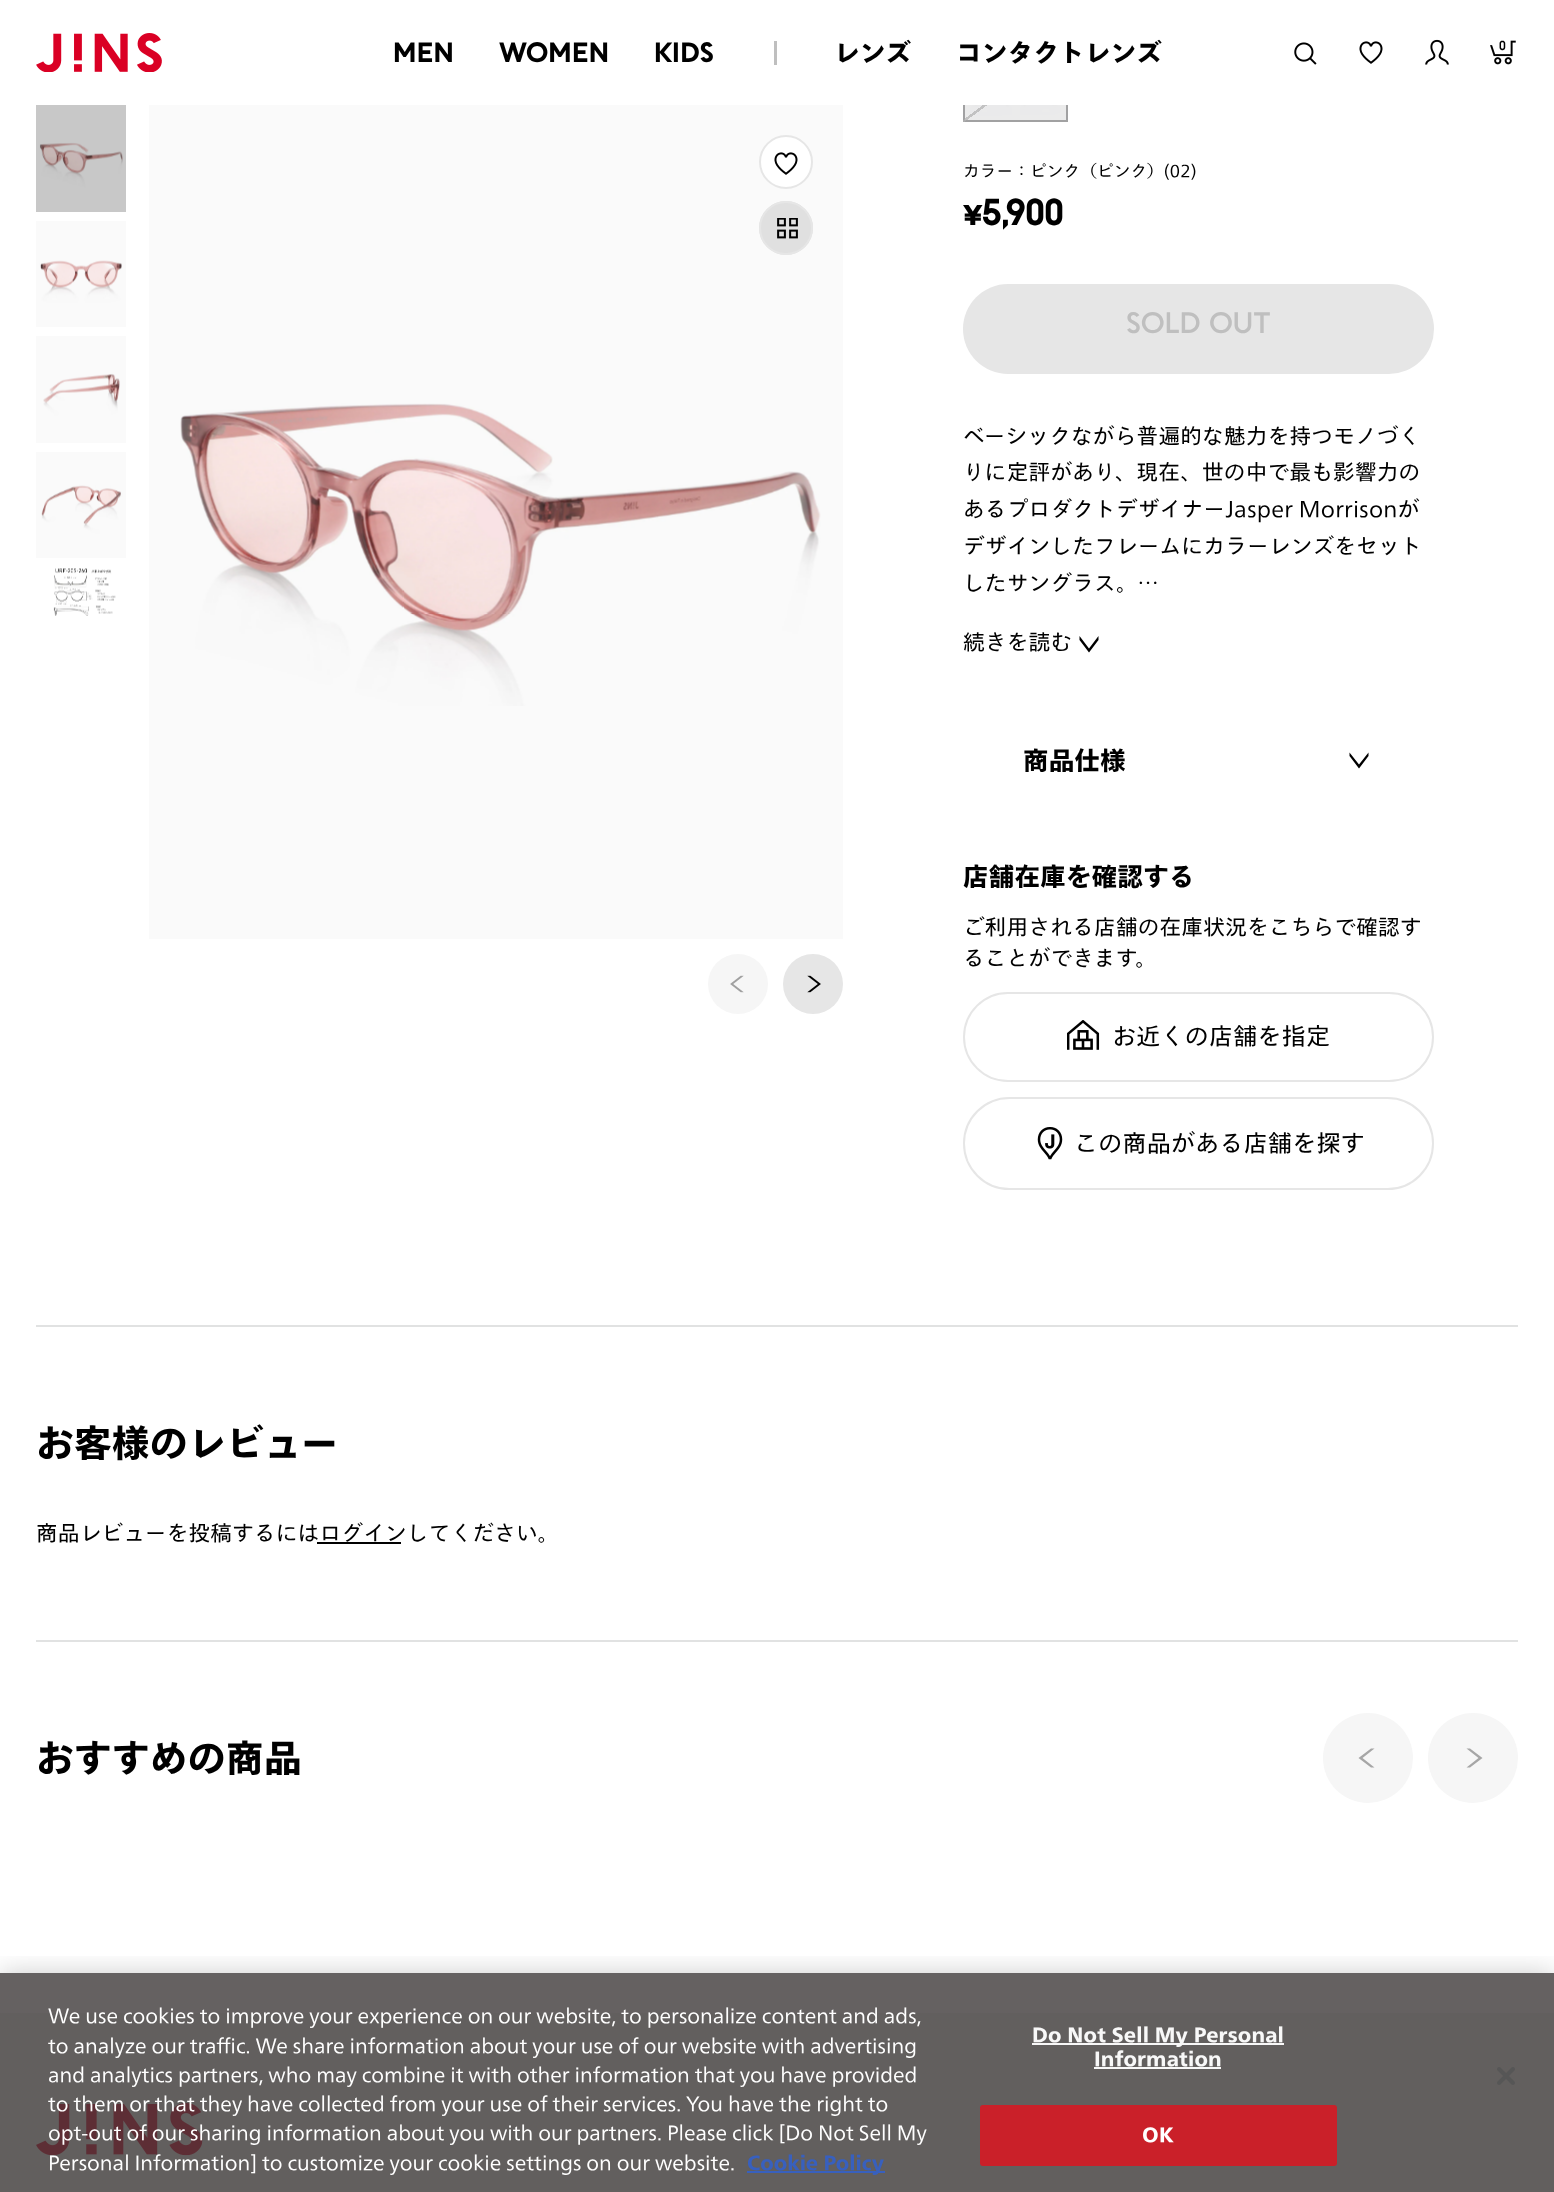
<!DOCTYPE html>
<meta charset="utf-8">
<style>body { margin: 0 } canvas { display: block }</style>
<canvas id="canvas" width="1554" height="2192"></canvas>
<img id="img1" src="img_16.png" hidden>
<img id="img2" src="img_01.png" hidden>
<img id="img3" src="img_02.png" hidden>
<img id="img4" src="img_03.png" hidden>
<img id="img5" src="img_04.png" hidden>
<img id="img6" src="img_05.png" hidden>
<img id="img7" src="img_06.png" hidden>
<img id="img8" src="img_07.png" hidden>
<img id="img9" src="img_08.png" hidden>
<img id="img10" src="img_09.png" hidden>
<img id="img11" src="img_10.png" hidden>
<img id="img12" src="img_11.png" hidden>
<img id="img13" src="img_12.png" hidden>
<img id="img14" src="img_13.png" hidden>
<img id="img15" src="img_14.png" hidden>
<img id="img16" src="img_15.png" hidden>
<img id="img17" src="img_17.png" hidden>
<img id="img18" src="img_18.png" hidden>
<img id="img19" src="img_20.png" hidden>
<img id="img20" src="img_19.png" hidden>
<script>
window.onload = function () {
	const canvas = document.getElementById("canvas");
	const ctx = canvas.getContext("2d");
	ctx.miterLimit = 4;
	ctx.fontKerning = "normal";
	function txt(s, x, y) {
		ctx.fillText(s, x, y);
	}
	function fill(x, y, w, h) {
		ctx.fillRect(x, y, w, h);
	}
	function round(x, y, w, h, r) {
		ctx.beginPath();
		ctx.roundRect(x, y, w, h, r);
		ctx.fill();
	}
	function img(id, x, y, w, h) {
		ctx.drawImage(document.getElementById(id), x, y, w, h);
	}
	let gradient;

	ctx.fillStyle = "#FFFFFF";
	fill(0, 0, 1554, 2192);
	ctx.fillStyle = "#656161";
	fill(0, 1973, 1554, 40);
	img("img1", 965, 105, 101, 15);
	ctx.strokeStyle = "#A1A1A2";
	ctx.lineWidth = 2;
	ctx.strokeRect(964, 45, 103, 76);
	ctx.fillStyle = "#FFFFFF";
	fill(963, 44, 105, 61);
	img("img2", 36, 33, 126, 39);
	ctx.fillStyle = "#BFBFBF";
	fill(774, 41, 3, 24);
	img("img3", 1294, 42, 23, 23);
	img("img4", 1359, 41, 24, 23);
	img("img5", 1425, 39, 24, 26);
	img("img6", 1490, 40, 26, 25);
	img("img7", 36, 105, 90, 107);
	img("img8", 36, 221, 90, 106);
	img("img9", 36, 336, 90, 107);
	img("img10", 36, 452, 90, 106);
	img("img11", 53, 568, 63, 48);
	ctx.fillStyle = "#FAFAFA";
	fill(149, 105, 694, 834);
	img("img12", 180, 403, 641, 303);
	ctx.fillStyle = "#F6F6F6";
	ctx.beginPath();
	ctx.arc(738, 984, 30, 0, Math.PI * 2);
	ctx.fill();
	img("img13", 730, 975, 14, 18);
	ctx.fillStyle = "#E6E6E6";
	ctx.beginPath();
	ctx.arc(813, 984, 30, 0, Math.PI * 2);
	ctx.fill();
	img("img14", 807, 975, 14, 18);
	ctx.fillStyle = "#FFFFFF";
	ctx.beginPath();
	ctx.arc(786, 162, 26, 0, Math.PI * 2);
	ctx.fill();
	ctx.strokeStyle = "#E6E6E6";
	ctx.stroke();
	img("img15", 774, 152, 24, 23);
	ctx.fillStyle = "#E0E0E0";
	ctx.beginPath();
	ctx.arc(786, 228, 27, 0, Math.PI * 2);
	ctx.fill();
	img("img16", 777, 218, 21, 21);
	ctx.beginPath();
	ctx.arc(786, 228, 26, 0, Math.PI * 2);
	ctx.stroke();
	gradient = ctx.createLinearGradient(978, 32, 1053, 133);
	gradient.addColorStop(0.49, "rgba(177, 177, 177, 0)");
	gradient.addColorStop(0.49, "rgba(177, 177, 177, 0.7)");
	gradient.addColorStop(0.51, "rgba(177, 177, 177, 0.7)");
	gradient.addColorStop(0.51, "rgba(177, 177, 177, 0)");
	gradient.addColorStop(1, "rgba(0, 0, 0, 0)");
	ctx.fillStyle = gradient;
	fill(963, 105, 24, 17);
	ctx.fillStyle = "#E6E6E6";
	round(963, 284, 471, 90, 45);
	ctx.fillStyle = "#000000";
	ctx.beginPath();
	ctx.moveTo(1089, 648.5);
	ctx.lineTo(1079.5, 636);
	ctx.lineTo(1079.5, 640);
	ctx.lineTo(1089, 652.5);
	ctx.lineTo(1098.5, 640);
	ctx.lineTo(1098.5, 636);
	ctx.closePath();
	ctx.fill("evenodd");
	ctx.beginPath();
	ctx.moveTo(1359, 764.5);
	ctx.lineTo(1349.5, 752.5);
	ctx.lineTo(1349.5, 756);
	ctx.lineTo(1359, 768.5);
	ctx.lineTo(1368.5, 756);
	ctx.lineTo(1368.5, 752.5);
	ctx.closePath();
	ctx.fill("evenodd");
	ctx.beginPath();
	ctx.roundRect(964, 993, 469, 88, 44);
	ctx.stroke();
	img("img17", 1067, 1020, 33, 30);
	ctx.beginPath();
	ctx.roundRect(964, 1098, 469, 91, 45.5);
	ctx.stroke();
	img("img18", 1037, 1127, 26, 33);
	ctx.fillStyle = "#E1E2E2";
	fill(36, 1325, 1482, 2);
	ctx.fillStyle = "#000000";
	fill(317, 1542, 84, 2);
	ctx.fillStyle = "#E1E2E2";
	fill(36, 1640, 1482, 2);
	ctx.fillStyle = "#F6F6F6";
	ctx.beginPath();
	ctx.arc(1368, 1758, 45, 0, Math.PI * 2);
	ctx.fill();
	ctx.fillStyle = "#A6A6A6";
	ctx.beginPath();
	ctx.moveTo(1362.5, 1758);
	ctx.lineTo(1374.5, 1748.5);
	ctx.lineTo(1371, 1748.5);
	ctx.lineTo(1358.5, 1758);
	ctx.lineTo(1371, 1767.5);
	ctx.lineTo(1374.5, 1767.5);
	ctx.closePath();
	ctx.fill("evenodd");
	ctx.fillStyle = "#F6F6F6";
	ctx.beginPath();
	ctx.arc(1473, 1758, 45, 0, Math.PI * 2);
	ctx.fill();
	ctx.fillStyle = "#A6A6A6";
	ctx.beginPath();
	ctx.moveTo(1478.5, 1758);
	ctx.lineTo(1466.5, 1748.5);
	ctx.lineTo(1470, 1748.5);
	ctx.lineTo(1482.5, 1758);
	ctx.lineTo(1470, 1767.5);
	ctx.lineTo(1466.5, 1767.5);
	ctx.closePath();
	ctx.fill("evenodd");
	ctx.fillStyle = "#625F5E";
	fill(0, 2013, 1554, 179);
	img("img19", 36, 2103, 167, 53);
	ctx.save();
	ctx.beginPath();
	ctx.rect(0, 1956, 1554, 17);
	ctx.clip();
	ctx.fillStyle = "rgba(0, 0, 0, 0.2)";
	ctx.filter = "blur(13.5px)";
	ctx.beginPath();
	ctx.rect(0, 1973, 1554, 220);
	ctx.fill();
	ctx.filter = "none";
	ctx.restore();
	ctx.fillStyle = "#3860BE";
	fill(747, 2171, 138, 2);
	ctx.fillStyle = "#F8F8F8";
	fill(1032, 2043, 252, 2);
	fill(1094, 2067, 127, 2);
	ctx.fillStyle = "#CA2029";
	ctx.beginPath();
	ctx.roundRect(981, 2106, 355, 59, 2);
	ctx.fill();
	ctx.strokeStyle = "#CA2029";
	ctx.stroke();
	img("img20", 1497, 2067, 18, 18);
	ctx.letterSpacing = "0.5px";
	ctx.font = "500 25.5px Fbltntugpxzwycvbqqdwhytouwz";
	ctx.fillStyle = "#000000";
	txt("MEN", 393, 62);
	txt("WOMEN", 500, 62);
	txt("KIDS", 654, 62);
	ctx.letterSpacing = "0.25px";
	ctx.font = "900 25.5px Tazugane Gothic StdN";
	txt("レンズ", 834, 62);
	txt("コンタクトレンズ", 956, 62);
	ctx.font = "12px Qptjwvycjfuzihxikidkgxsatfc";
	txt("0", 1499, 50);
	ctx.font = "16.5px Tazugane Gothic StdN";
	txt("カラー：ピンク（ピンク）(02)", 963, 177);
	ctx.letterSpacing = "0.5px";
	ctx.font = "bold 33px Qptjwvycjfuzihxikidkgxsatfc";
	txt("¥5,900", 963, 225);
	ctx.letterSpacing = "0.25px";
	ctx.font = "27px Qptjwvycjfuzihxikidkgxsatfc";
	ctx.fillStyle = "#BFBFBF";
	txt("SOLD OUT", 1126, 333);
	ctx.font = "21.6px Tazugane Gothic StdN";
	ctx.fillStyle = "#000000";
	txt("ベーシックながら普遍的な魅力を持つモノづく", 963, 444);
	txt("りに定評があり、現在、世の中で最も影響力の", 963, 480);
	txt("あるプロダクトデザイナーJasper Morrisonが", 963, 517);
	txt("デザインしたフレームにカラーレンズをセット", 963, 554);
	txt("したサングラス。…", 963, 591);
	txt("続きを読む", 963, 650);
	ctx.font = "900 25.5px Tazugane Gothic StdN";
	txt("商品仕様", 1023, 770);
	txt("店舗在庫を確認する", 963, 886);
	ctx.font = "21.6px Tazugane Gothic StdN";
	txt("ご利用される店舗の在庫状況をこちらで確認す", 963, 935);
	txt("ることができます。", 963, 966);
	ctx.font = "24px Tazugane Gothic StdN";
	txt("お近くの店舗を指定", 1112, 1045);
	txt("この商品がある店舗を探す", 1074, 1152);
	ctx.letterSpacing = "0.5px";
	ctx.font = "900 37.5px Tazugane Gothic StdN";
	txt("お客様のレビュー", 36, 1457);
	ctx.letterSpacing = "0.25px";
	ctx.font = "21.6px Tazugane Gothic StdN";
	txt("商品レビューを投稿するにはログインしてください。", 36, 1541);
	ctx.letterSpacing = "0.5px";
	ctx.font = "900 37.5px Tazugane Gothic StdN";
	txt("おすすめの商品", 36, 1772);
	ctx.letterSpacing = "0px";
	ctx.font = "19.5px Tazugane Gothic StdN";
	ctx.fillStyle = "#FFFFFF";
	txt("We use cookies to improve your experience on our website, to personalize content and ads,", 48, 2023);
	txt("to analyze our traffic. We share information about your use of our website with advertising", 48, 2053);
	txt("and analytics partners, who may combine it with other information that you have provided", 48, 2082);
	txt("to them or that they have collected from your use of their services. You have the right to", 48, 2111);
	txt("opt-out of our sharing information about you with our partners. Please click [Do Not Sell My", 48, 2140);
	txt("Personal Information] to customize your cookie settings on our website.", 48, 2170);
	ctx.font = "900 19.5px Tazugane Gothic StdN";
	ctx.fillStyle = "#3860BE";
	txt("Cookie Policy", 747, 2170);
	ctx.letterSpacing = "0.2px";
	ctx.fillStyle = "#F8F8F8";
	txt("Do Not Sell My Personal", 1032, 2042);
	txt("Information", 1094, 2066);
	ctx.fillStyle = "#FFFFFF";
	txt("OK", 1142, 2142);
};
</script>
